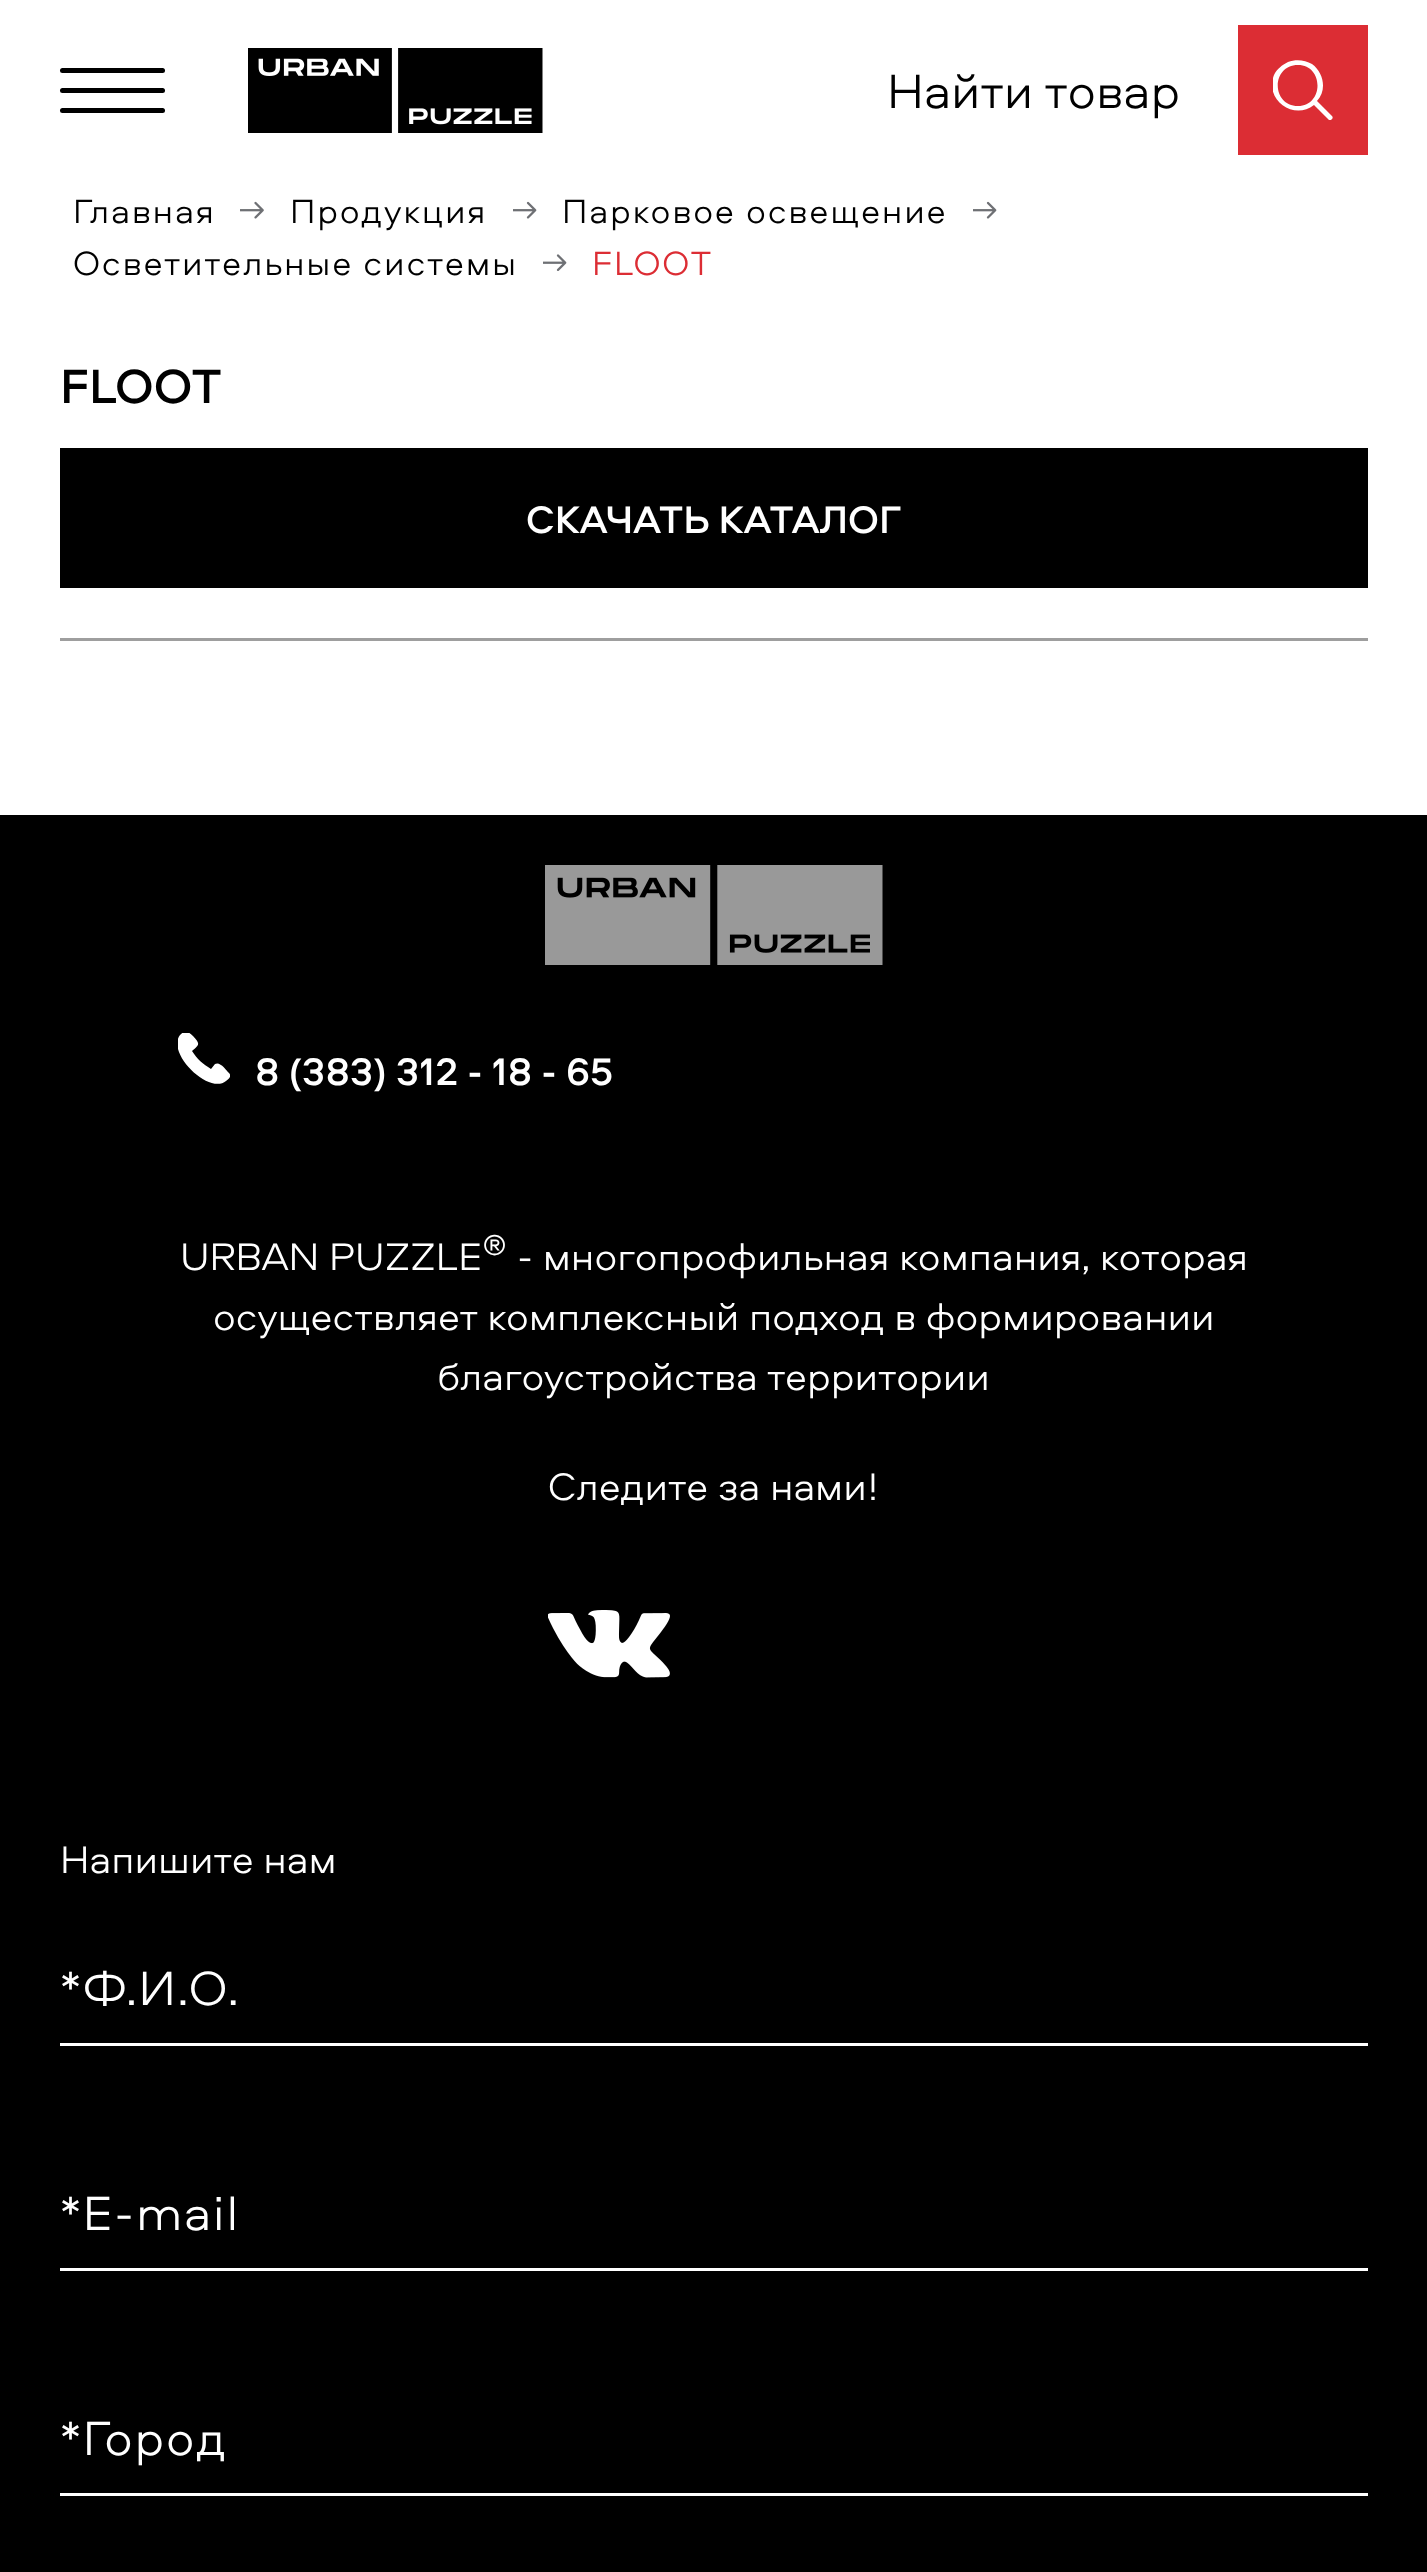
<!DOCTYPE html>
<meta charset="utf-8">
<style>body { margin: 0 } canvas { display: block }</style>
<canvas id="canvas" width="1427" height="2572"></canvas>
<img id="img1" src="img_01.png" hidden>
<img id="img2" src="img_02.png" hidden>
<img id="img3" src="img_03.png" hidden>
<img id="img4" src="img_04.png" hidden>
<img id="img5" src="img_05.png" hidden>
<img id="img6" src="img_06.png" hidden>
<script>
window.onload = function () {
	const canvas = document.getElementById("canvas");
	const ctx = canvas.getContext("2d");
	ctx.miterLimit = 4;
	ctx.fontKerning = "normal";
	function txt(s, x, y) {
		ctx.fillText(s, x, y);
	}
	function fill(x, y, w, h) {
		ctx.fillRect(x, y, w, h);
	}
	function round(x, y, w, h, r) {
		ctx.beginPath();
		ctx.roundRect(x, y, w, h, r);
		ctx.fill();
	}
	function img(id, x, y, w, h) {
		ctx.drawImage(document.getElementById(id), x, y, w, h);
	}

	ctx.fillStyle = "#FFFFFF";
	fill(0, 0, 1427, 2572);
	ctx.fillStyle = "#000000";
	round(60, 88, 105, 5, 2.5);
	round(60, 68, 105, 5, 2.5);
	round(60, 108, 105, 5, 2.5);
	img("img1", 248, 48, 295, 85);
	ctx.fillStyle = "#DC2D34";
	fill(1238, 25, 130, 130);
	ctx.save();
	ctx.beginPath();
	ctx.rect(1273, 60, 60, 60);
	ctx.clip();
	ctx.fillStyle = "#FFFFFF";
	ctx.beginPath();
	ctx.moveTo(1332, 116);
	ctx.lineTo(1317, 101);
	ctx.bezierCurveTo(1327, 90, 1324, 73, 1312, 64);
	ctx.bezierCurveTo(1305, 60, 1296, 59, 1288, 62);
	ctx.bezierCurveTo(1282, 65, 1277, 69, 1274, 75);
	ctx.bezierCurveTo(1264, 100, 1294, 121, 1314, 105);
	ctx.lineTo(1329, 120);
	ctx.bezierCurveTo(1331, 121, 1334, 118, 1332, 116);
	ctx.closePath();
	ctx.moveTo(1298, 106);
	ctx.bezierCurveTo(1271, 106, 1271, 65, 1298, 65);
	ctx.bezierCurveTo(1324, 65, 1324, 106, 1298, 106);
	ctx.closePath();
	ctx.fill();
	ctx.restore();
	img("img2", 240, 201, 24, 18);
	img("img3", 513, 201, 24, 18);
	img("img3", 973, 201, 24, 18);
	img("img4", 543, 254, 24, 17);
	ctx.fillStyle = "#9E9E9E";
	fill(60, 638, 1308, 3);
	ctx.fillStyle = "#000000";
	fill(60, 448, 1308, 140);
	fill(0, 815, 1427, 1757);
	img("img5", 545, 865, 338, 100);
	ctx.save();
	ctx.beginPath();
	ctx.rect(178, 1033, 52, 52);
	ctx.clip();
	ctx.fillStyle = "#FFFFFF";
	ctx.beginPath();
	ctx.moveTo(229, 1073);
	ctx.bezierCurveTo(226, 1070, 220, 1061, 215, 1064);
	ctx.lineTo(211, 1069);
	ctx.bezierCurveTo(203, 1064, 197, 1059, 192, 1051);
	ctx.bezierCurveTo(200, 1044, 200, 1044, 193, 1036);
	ctx.bezierCurveTo(187, 1031, 186, 1029, 180, 1035);
	ctx.bezierCurveTo(166, 1053, 209, 1095, 226, 1081);
	ctx.bezierCurveTo(229, 1079, 232, 1076, 229, 1073);
	ctx.closePath();
	ctx.fill();
	ctx.restore();
	img("img6", 548, 1610, 122, 68);
	ctx.fillStyle = "#FFFFFF";
	fill(60, 2043, 1308, 3);
	fill(60, 2268, 1308, 3);
	fill(60, 2493, 1308, 3);
	ctx.font = "300 50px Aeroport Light";
	ctx.fillStyle = "#000000";
	txt("Найти товар", 887, 108);
	ctx.letterSpacing = "1.75px";
	ctx.font = "300 35px Aeroport Light";
	txt("Главная", 73, 223);
	txt("Продукция", 290, 223);
	txt("Парковое освещение", 562, 223);
	txt("Осветительные системы", 73, 275);
	ctx.fillStyle = "#DC2D34";
	txt("FLOOT", 592, 275);
	ctx.letterSpacing = "0px";
	ctx.font = "500 50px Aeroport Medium";
	ctx.fillStyle = "#000000";
	txt("FLOOT", 60, 403);
	ctx.font = "500 40px Aeroport Medium";
	ctx.fillStyle = "#FFFFFF";
	txt("СКАЧАТЬ КАТАЛОГ", 526, 533);
	txt("8 (383) 312 - 18 - 65", 255, 1085);
	ctx.font = "300 40px Aeroport Light";
	txt("URBAN PUZZLE", 180, 1270);
	ctx.font = "300 30px Aeroport Light";
	txt("®", 482, 1255);
	ctx.font = "300 40px Aeroport Light";
	txt("- многопрофильная компания, которая", 517, 1270);
	txt("осуществляет комплексный подход в формировании", 213, 1330);
	txt("благоустройства территории", 437, 1390);
	txt("Следите за нами!", 548, 1500);
	txt("Напишите нам", 60, 1873);
	ctx.letterSpacing = "1.75px";
	ctx.font = "300 50px Aeroport Light";
	txt("*Ф.И.О.", 60, 2005);
	txt("*E-mail", 60, 2230);
	txt("*Город", 60, 2455);
};
</script>
